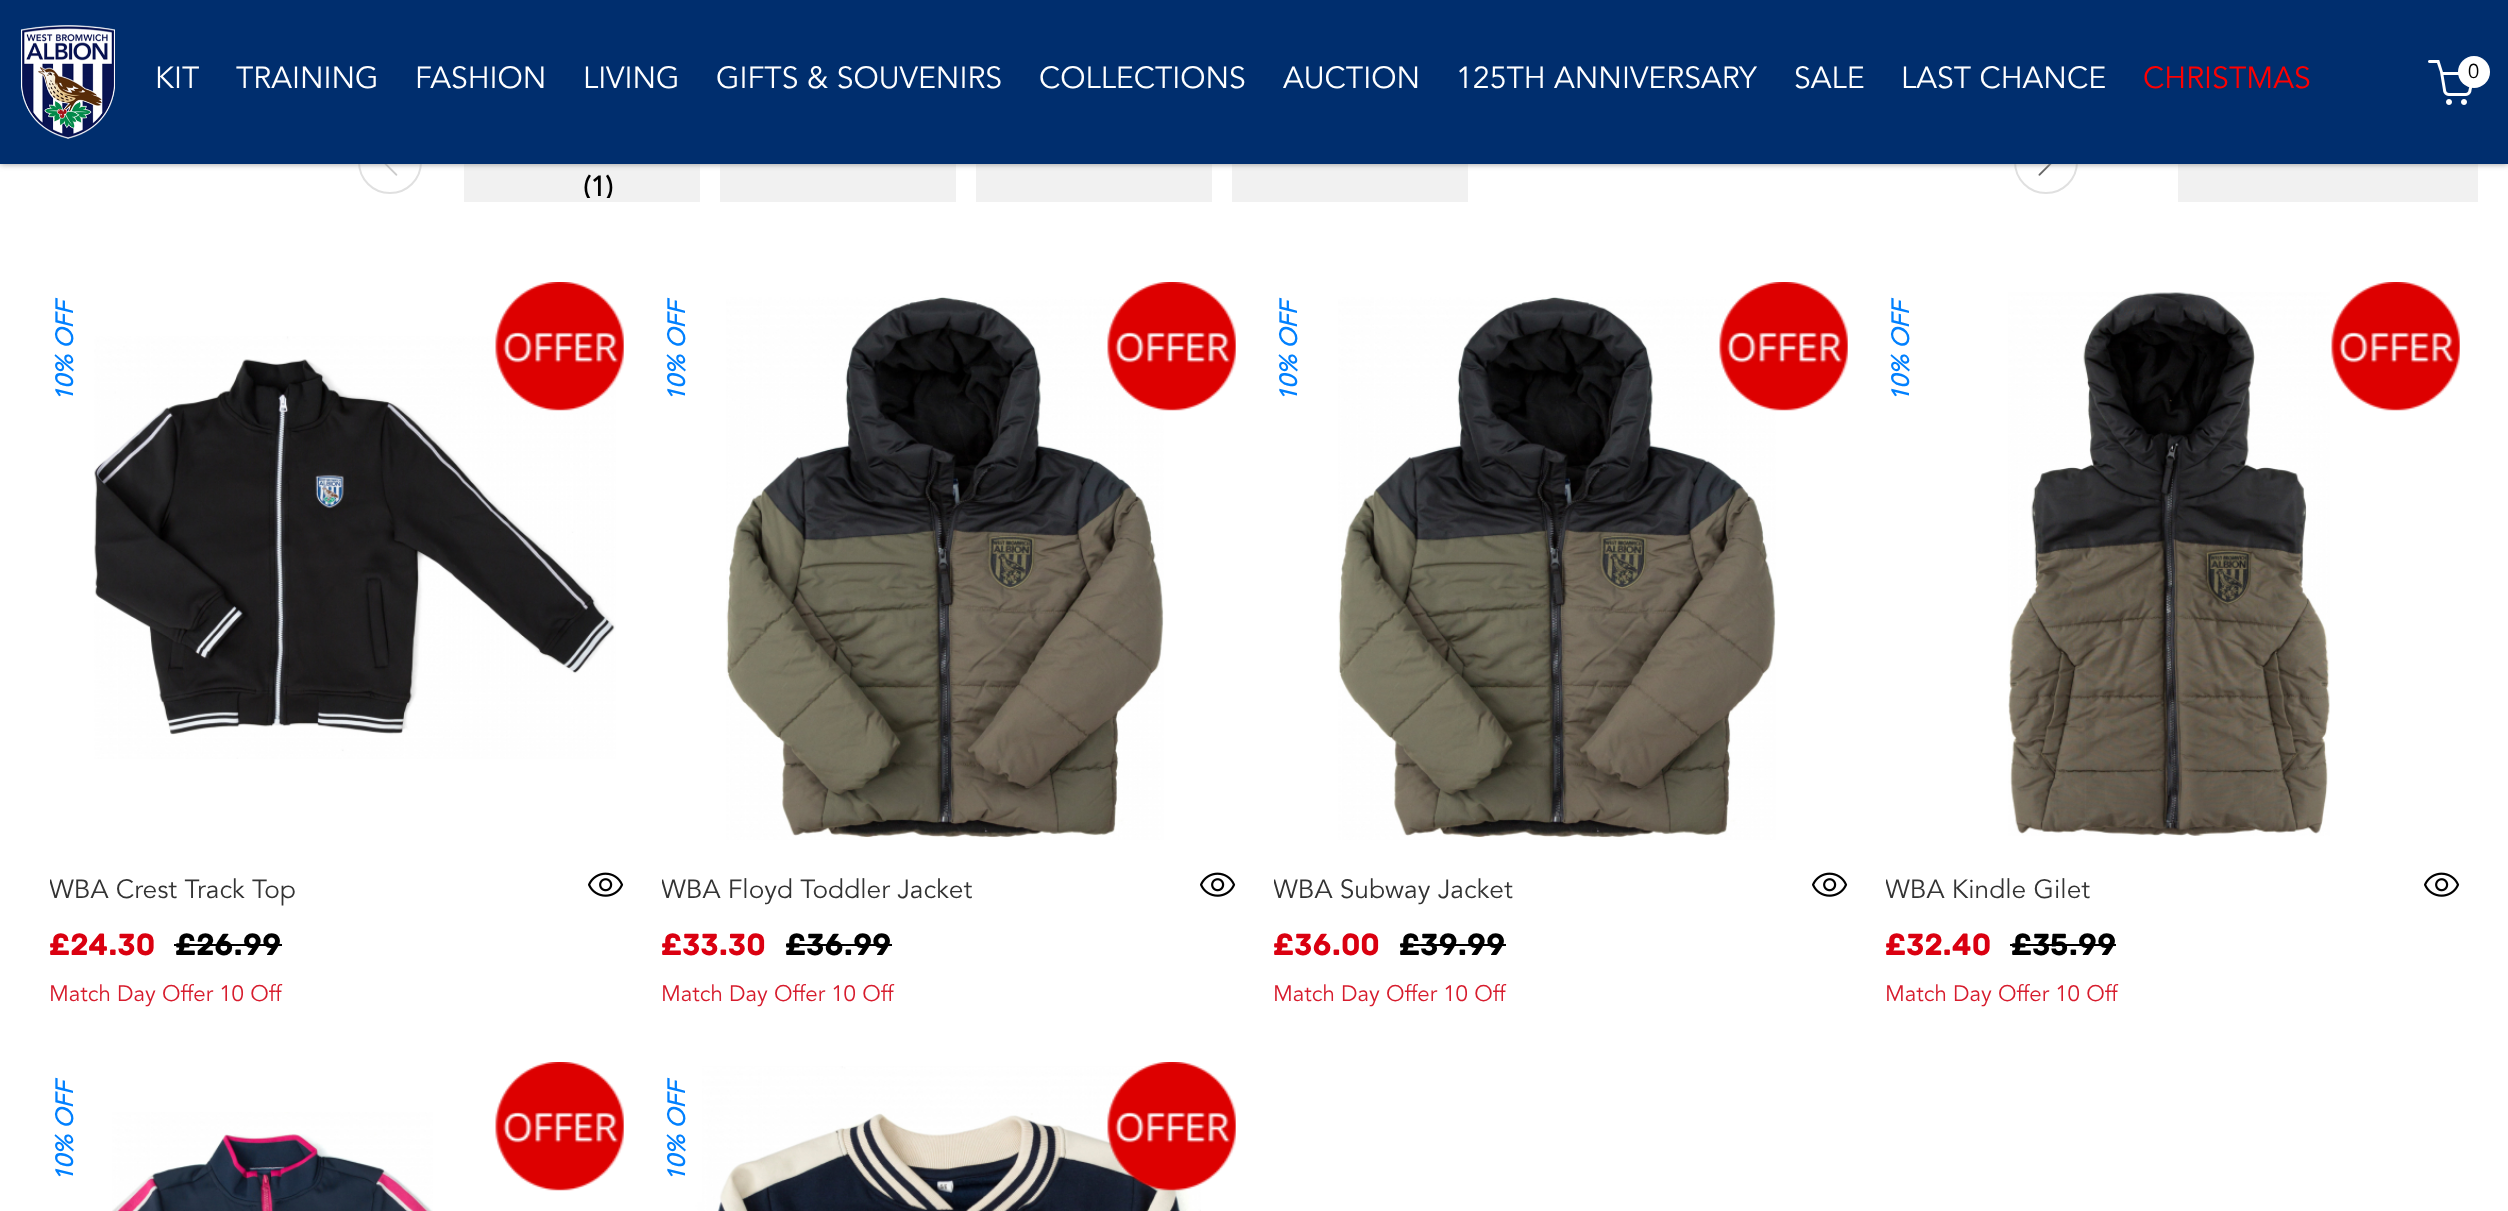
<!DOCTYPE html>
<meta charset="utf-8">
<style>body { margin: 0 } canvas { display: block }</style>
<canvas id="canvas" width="2508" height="1211"></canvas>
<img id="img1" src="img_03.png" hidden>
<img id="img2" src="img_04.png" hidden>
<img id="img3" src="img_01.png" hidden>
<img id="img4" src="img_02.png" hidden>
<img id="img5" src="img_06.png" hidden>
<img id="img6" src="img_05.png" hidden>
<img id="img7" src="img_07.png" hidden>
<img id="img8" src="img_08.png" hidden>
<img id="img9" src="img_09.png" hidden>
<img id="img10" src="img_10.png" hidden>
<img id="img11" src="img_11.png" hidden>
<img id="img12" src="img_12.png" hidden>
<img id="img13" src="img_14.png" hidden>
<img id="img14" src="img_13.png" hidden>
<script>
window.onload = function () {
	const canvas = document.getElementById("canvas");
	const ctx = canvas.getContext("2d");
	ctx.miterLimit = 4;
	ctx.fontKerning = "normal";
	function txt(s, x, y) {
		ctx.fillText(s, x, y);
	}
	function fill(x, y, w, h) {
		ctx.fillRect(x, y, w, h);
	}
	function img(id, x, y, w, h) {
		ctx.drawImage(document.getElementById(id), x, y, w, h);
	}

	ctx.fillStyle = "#FFFFFF";
	fill(0, 0, 2508, 1211);
	ctx.beginPath();
	ctx.arc(390, 162, 31, 0, Math.PI * 2);
	ctx.strokeStyle = "#E0E0E0";
	ctx.lineWidth = 2;
	ctx.stroke();
	img("img1", 384, 164, 14, 12);
	ctx.fillStyle = "#F1F1F1";
	fill(464, 164, 236, 38);
	fill(720, 164, 236, 38);
	fill(976, 164, 236, 38);
	fill(1232, 164, 236, 38);
	ctx.beginPath();
	ctx.arc(2046, 162, 31, 0, Math.PI * 2);
	ctx.stroke();
	img("img2", 2038, 164, 14, 12);
	fill(2178, 164, 300, 38);
	ctx.fillStyle = "#959595";
	ctx.filter = "blur(3px)";
	ctx.beginPath();
	ctx.rect(0, 0, 2508, 164);
	ctx.fill();
	ctx.filter = "none";
	ctx.fillStyle = "#002E6E";
	fill(0, 0, 2508, 164);
	img("img3", 21, 25, 94, 114);
	img("img4", 2428, 60, 45, 45);
	ctx.fillStyle = "#FFFFFF";
	ctx.beginPath();
	ctx.arc(2474, 72, 16, 0, Math.PI * 2);
	ctx.fill();
	img("img5", 94, 336, 522, 423);
	img("img6", 495, 282, 129, 129);
	ctx.fillStyle = "#000000";
	fill(174, 944, 108, 2);
	img("img7", 588, 872, 36, 25);
	img("img8", 726, 297, 438, 543);
	img("img9", 1107, 282, 129, 129);
	fill(786, 944, 106, 2);
	img("img7", 1200, 872, 36, 25);
	img("img8", 1338, 297, 438, 543);
	img("img9", 1719, 282, 129, 129);
	fill(1400, 944, 106, 2);
	img("img7", 1812, 872, 36, 25);
	img("img10", 2008, 292, 322, 544);
	img("img11", 2331, 282, 129, 129);
	fill(2010, 944, 106, 2);
	img("img7", 2424, 872, 36, 25);
	img("img12", 112, 1112, 321, 99);
	img("img11", 495, 1062, 129, 129);
	img("img13", 695, 1066, 506, 145);
	img("img14", 1107, 1062, 129, 129);
	ctx.fillStyle = "#FFFFFF";
	ctx.beginPath();
	ctx.roundRect(662, 1062, 40, 140, [10, 0, 0, 0]);
	ctx.fill();
	ctx.font = "30.25px Avenir";
	txt("KIT", 155, 88);
	txt("TRAINING", 236, 88);
	txt("FASHION", 415, 88);
	txt("LIVING", 583, 88);
	txt("GIFTS & SOUVENIRS", 716, 88);
	txt("COLLECTIONS", 1039, 88);
	txt("AUCTION", 1283, 88);
	txt("125TH ANNIVERSARY", 1456, 88);
	txt("SALE", 1794, 88);
	txt("LAST CHANCE", 1901, 88);
	ctx.fillStyle = "#FF0000";
	txt("CHRISTMAS", 2143, 88);
	ctx.font = "20px Avenir";
	ctx.fillStyle = "#000000";
	txt("0", 2468, 78);
	ctx.save();
	ctx.beginPath();
	ctx.rect(468, 126, 228, 72);
	ctx.clip();
	ctx.font = "bold 28px Avenir";
	txt("(1)", 583, 196);
	ctx.restore();
	ctx.font = "italic bold 24px Avenir";
	ctx.fillStyle = "#0080FF";
	ctx.save();
	ctx.translate(73, 402);
	ctx.rotate(-90 * Math.PI / 180);
	ctx.fillText("10% OFF", 0, 0);
	ctx.restore();
	ctx.save();
	ctx.beginPath();
	ctx.rect(50, 866, 538, 52);
	ctx.clip();
	ctx.font = "26.3px Avenir";
	ctx.fillStyle = "#333333";
	txt("WBA Crest Track Top", 49, 898);
	ctx.restore();
	ctx.font = "32.5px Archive";
	ctx.fillStyle = "#DA0010";
	txt("£24.30", 49, 955);
	ctx.fillStyle = "#000000";
	txt("£26.99", 175, 955);
	ctx.font = "22.25px Avenir";
	ctx.fillStyle = "#D71C2D";
	txt("Match Day Offer 10 Off", 49, 1001);
	ctx.font = "italic bold 24px Avenir";
	ctx.fillStyle = "#0080FF";
	ctx.save();
	ctx.translate(685, 402);
	ctx.rotate(-90 * Math.PI / 180);
	ctx.fillText("10% OFF", 0, 0);
	ctx.restore();
	ctx.save();
	ctx.beginPath();
	ctx.rect(662, 866, 538, 52);
	ctx.clip();
	ctx.font = "26.3px Avenir";
	ctx.fillStyle = "#333333";
	txt("WBA Floyd Toddler Jacket", 661, 898);
	ctx.restore();
	ctx.font = "32.5px Archive";
	ctx.fillStyle = "#DA0010";
	txt("£33.30", 661, 955);
	ctx.fillStyle = "#000000";
	txt("£36.99", 785, 955);
	ctx.font = "22.25px Avenir";
	ctx.fillStyle = "#D71C2D";
	txt("Match Day Offer 10 Off", 661, 1001);
	ctx.font = "italic bold 24px Avenir";
	ctx.fillStyle = "#0080FF";
	ctx.save();
	ctx.translate(1297, 402);
	ctx.rotate(-90 * Math.PI / 180);
	ctx.fillText("10% OFF", 0, 0);
	ctx.restore();
	ctx.save();
	ctx.beginPath();
	ctx.rect(1274, 866, 538, 52);
	ctx.clip();
	ctx.font = "26.3px Avenir";
	ctx.fillStyle = "#333333";
	txt("WBA Subway Jacket", 1273, 898);
	ctx.restore();
	ctx.font = "32.5px Archive";
	ctx.fillStyle = "#DA0010";
	txt("£36.00", 1273, 955);
	ctx.fillStyle = "#000000";
	txt("£39.99", 1399, 955);
	ctx.font = "22.25px Avenir";
	ctx.fillStyle = "#D71C2D";
	txt("Match Day Offer 10 Off", 1273, 1001);
	ctx.font = "italic bold 24px Avenir";
	ctx.fillStyle = "#0080FF";
	ctx.save();
	ctx.translate(1909, 402);
	ctx.rotate(-90 * Math.PI / 180);
	ctx.fillText("10% OFF", 0, 0);
	ctx.restore();
	ctx.save();
	ctx.beginPath();
	ctx.rect(1886, 866, 538, 52);
	ctx.clip();
	ctx.font = "26.3px Avenir";
	ctx.fillStyle = "#333333";
	txt("WBA Kindle Gilet", 1885, 898);
	ctx.restore();
	ctx.font = "32.5px Archive";
	ctx.fillStyle = "#DA0010";
	txt("£32.40", 1885, 955);
	ctx.fillStyle = "#000000";
	txt("£35.99", 2011, 955);
	ctx.font = "22.25px Avenir";
	ctx.fillStyle = "#D71C2D";
	txt("Match Day Offer 10 Off", 1885, 1001);
	ctx.font = "italic bold 24px Avenir";
	ctx.fillStyle = "#0080FF";
	ctx.save();
	ctx.translate(73, 1182);
	ctx.rotate(-90 * Math.PI / 180);
	ctx.fillText("10% OFF", 0, 0);
	ctx.restore();
	ctx.save();
	ctx.translate(685, 1182);
	ctx.rotate(-90 * Math.PI / 180);
	ctx.fillText("10% OFF", 0, 0);
	ctx.restore();
};
</script>
